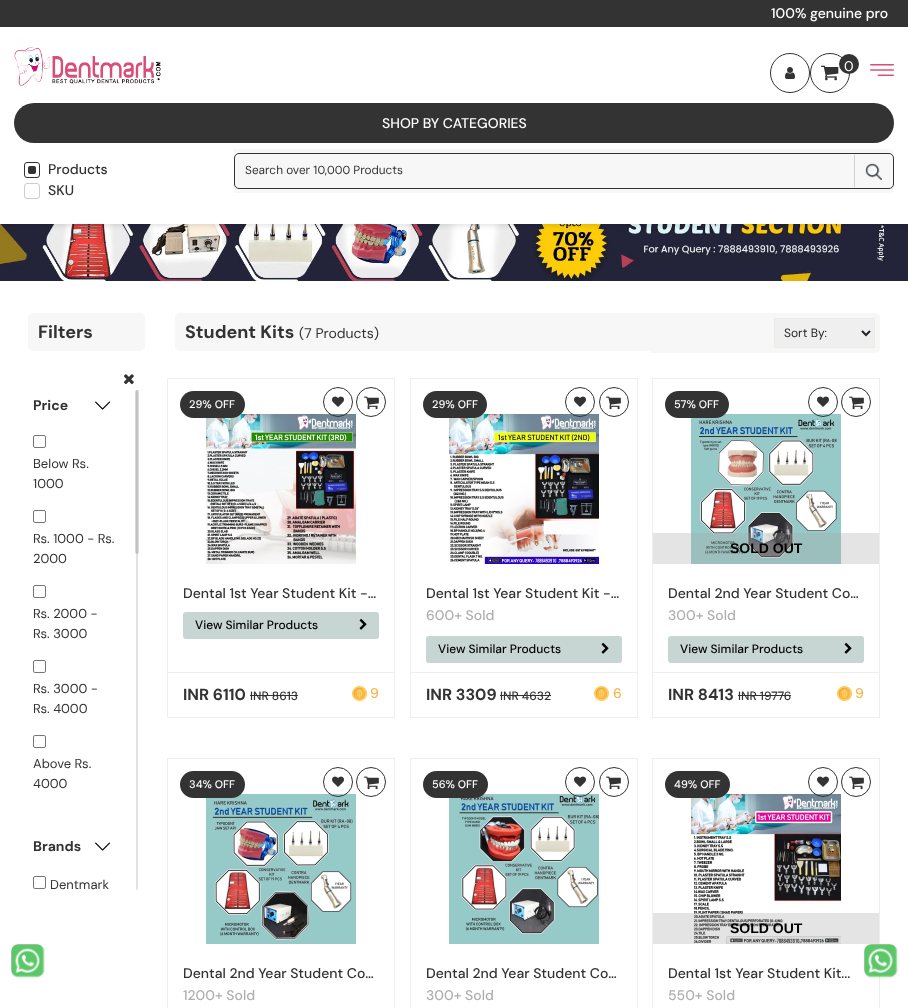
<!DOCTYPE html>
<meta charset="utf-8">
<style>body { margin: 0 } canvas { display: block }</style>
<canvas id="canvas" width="908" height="1008"></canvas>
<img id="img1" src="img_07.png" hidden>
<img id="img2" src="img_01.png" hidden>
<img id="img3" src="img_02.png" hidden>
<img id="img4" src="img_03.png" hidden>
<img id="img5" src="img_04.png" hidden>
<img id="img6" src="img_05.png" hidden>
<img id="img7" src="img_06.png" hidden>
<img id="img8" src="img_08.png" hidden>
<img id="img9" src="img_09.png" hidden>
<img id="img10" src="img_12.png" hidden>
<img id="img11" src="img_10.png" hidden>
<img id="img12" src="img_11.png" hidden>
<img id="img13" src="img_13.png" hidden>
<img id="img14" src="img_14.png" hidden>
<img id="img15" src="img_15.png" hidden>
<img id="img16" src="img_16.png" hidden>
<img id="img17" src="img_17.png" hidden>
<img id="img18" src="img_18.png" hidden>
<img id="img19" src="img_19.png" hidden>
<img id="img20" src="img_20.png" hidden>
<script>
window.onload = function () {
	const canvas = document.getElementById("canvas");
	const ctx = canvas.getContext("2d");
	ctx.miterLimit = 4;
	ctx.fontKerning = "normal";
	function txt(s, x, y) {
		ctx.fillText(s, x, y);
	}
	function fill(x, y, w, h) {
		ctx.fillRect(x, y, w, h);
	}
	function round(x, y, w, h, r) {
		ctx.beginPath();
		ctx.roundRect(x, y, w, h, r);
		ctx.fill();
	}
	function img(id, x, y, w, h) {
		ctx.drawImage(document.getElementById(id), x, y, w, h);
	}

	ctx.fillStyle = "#FFFFFF";
	fill(0, 0, 908, 1008);
	ctx.fillStyle = "#333333";
	fill(0, 0, 908, 27);
	img("img1", 0, 224, 908, 57);
	ctx.fillStyle = "rgba(0, 0, 0, 0.1)";
	ctx.filter = "blur(2.5px)";
	ctx.beginPath();
	ctx.rect(0, 29, 908, 197);
	ctx.fill();
	ctx.filter = "none";
	ctx.fillStyle = "#FFFFFF";
	fill(0, 27, 908, 197);
	img("img2", 14, 47, 147, 39);
	ctx.beginPath();
	ctx.arc(790, 73, 19.5, 0, Math.PI * 2);
	ctx.strokeStyle = "#333333";
	ctx.stroke();
	img("img3", 785, 67, 10, 12);
	ctx.beginPath();
	ctx.arc(830, 73, 19.5, 0, Math.PI * 2);
	ctx.stroke();
	img("img4", 821, 65, 18, 16);
	ctx.fillStyle = "#333333";
	ctx.beginPath();
	ctx.arc(849, 64, 10, 0, Math.PI * 2);
	ctx.fill();
	img("img5", 870, 64, 24, 12);
	round(14, 103, 880, 40, 20);
	ctx.beginPath();
	ctx.roundRect(24.5, 162.5, 15, 15, 2.5);
	ctx.stroke();
	round(28, 166, 8, 8, 2);
	ctx.beginPath();
	ctx.roundRect(24.5, 183.5, 15, 15, 2.5);
	ctx.strokeStyle = "#CCCCCC";
	ctx.stroke();
	ctx.fillStyle = "#F7F7F7";
	ctx.beginPath();
	ctx.roundRect(234, 149, 660, 44, [0, 5, 5, 0]);
	ctx.fill();
	ctx.beginPath();
	ctx.roundRect(234.5, 153.5, 659, 35, 4.5);
	ctx.strokeStyle = "#333333";
	ctx.stroke();
	ctx.fillStyle = "#D0D0D0";
	ctx.beginPath();
	ctx.moveTo(854, 188);
	ctx.lineTo(854, 154);
	ctx.lineTo(855, 155);
	ctx.lineTo(855, 187);
	ctx.closePath();
	ctx.fill();
	img("img6", 865, 163, 17, 17);
	img("img7", 11, 944, 34, 34);
	ctx.fillStyle = "#F7F7F7";
	round(28, 313, 117, 38, 5);
	img("img8", 124, 374, 10, 11);
	img("img9", 95, 401, 15, 9);
	ctx.beginPath();
	ctx.roundRect(33.5, 435.5, 12, 12, 1.5);
	ctx.strokeStyle = "#767676";
	ctx.stroke();
	ctx.beginPath();
	ctx.roundRect(33.5, 510.5, 12, 12, 1.5);
	ctx.stroke();
	ctx.beginPath();
	ctx.roundRect(33.5, 585.5, 12, 12, 1.5);
	ctx.stroke();
	ctx.beginPath();
	ctx.roundRect(33.5, 660.5, 12, 12, 1.5);
	ctx.stroke();
	ctx.beginPath();
	ctx.roundRect(33.5, 735.5, 12, 12, 1.5);
	ctx.stroke();
	img("img9", 95, 842, 15, 9);
	ctx.beginPath();
	ctx.roundRect(33.5, 876.5, 12, 12, 1.5);
	ctx.stroke();
	ctx.fillStyle = "#E2E2E2";
	round(136, 390, 2, 500, 1);
	ctx.fillStyle = "rgba(64, 64, 64, 0.2)";
	round(135, 390, 4, 164, 2);
	ctx.fillStyle = "#F7F7F7";
	ctx.beginPath();
	ctx.roundRect(175, 313, 475, 38, [5, 0, 0, 5]);
	ctx.fill();
	ctx.beginPath();
	ctx.roundRect(650, 313, 230, 40, [0, 5, 5, 0]);
	ctx.fill();
	ctx.fillStyle = "#EFEFEF";
	ctx.beginPath();
	ctx.rect(774.5, 318.5, 100, 29);
	ctx.fill();
	ctx.strokeStyle = "#EFEAE3";
	ctx.stroke();
	ctx.beginPath();
	ctx.moveTo(862, 331);
	ctx.lineTo(866, 335);
	ctx.lineTo(870, 331);
	ctx.strokeStyle = "#212529";
	ctx.lineWidth = 2;
	ctx.stroke();
	ctx.strokeStyle = "#EEEEEE";
	ctx.lineWidth = 1;
	ctx.strokeRect(167.5, 378.5, 227, 339);
	img("img10", 206, 414, 150, 150);
	ctx.fillStyle = "#333333";
	round(180, 391, 65, 27, 13.5);
	ctx.beginPath();
	ctx.arc(338, 402, 14.5, 0, Math.PI * 2);
	ctx.strokeStyle = "#333333";
	ctx.stroke();
	img("img11", 332, 396, 12, 11);
	ctx.beginPath();
	ctx.arc(371, 402, 14.5, 0, Math.PI * 2);
	ctx.stroke();
	img("img12", 364, 396, 15, 14);
	ctx.fillStyle = "#EEEEEE";
	fill(168, 672, 226, 1);
	ctx.fillStyle = "#333333";
	fill(250, 695, 48, 1);
	img("img13", 352, 686, 15, 15);
	ctx.fillStyle = "#C7D5D3";
	round(183, 612, 196, 27, 3);
	img("img14", 359, 618, 8, 12);
	ctx.strokeStyle = "#EEEEEE";
	ctx.strokeRect(410.5, 378.5, 227, 339);
	img("img15", 449, 414, 150, 150);
	ctx.fillStyle = "#333333";
	round(423, 391, 64, 27, 13.5);
	ctx.beginPath();
	ctx.arc(580, 402, 14.5, 0, Math.PI * 2);
	ctx.strokeStyle = "#333333";
	ctx.stroke();
	img("img11", 574, 396, 12, 11);
	ctx.beginPath();
	ctx.arc(614, 402, 14.5, 0, Math.PI * 2);
	ctx.stroke();
	img("img12", 606, 396, 15, 14);
	ctx.fillStyle = "#EEEEEE";
	fill(411, 672, 226, 1);
	ctx.fillStyle = "#333333";
	fill(500, 695, 51, 1);
	img("img13", 594, 686, 15, 15);
	ctx.fillStyle = "#C7D5D3";
	round(426, 636, 196, 27, 3);
	img("img14", 601, 642, 8, 12);
	ctx.strokeStyle = "#EEEEEE";
	ctx.strokeRect(652.5, 378.5, 227, 339);
	img("img16", 691, 414, 150, 150);
	ctx.fillStyle = "#333333";
	round(665, 391, 64, 27, 13.5);
	ctx.beginPath();
	ctx.arc(823, 402, 14.5, 0, Math.PI * 2);
	ctx.strokeStyle = "#333333";
	ctx.stroke();
	img("img11", 817, 396, 12, 11);
	ctx.beginPath();
	ctx.arc(856, 402, 14.5, 0, Math.PI * 2);
	ctx.stroke();
	img("img12", 849, 396, 15, 14);
	ctx.fillStyle = "rgba(165, 165, 165, 0.3)";
	fill(653, 533, 226, 31);
	ctx.fillStyle = "#EEEEEE";
	fill(653, 672, 226, 1);
	ctx.fillStyle = "#333333";
	fill(738, 695, 53, 1);
	img("img13", 837, 686, 15, 15);
	ctx.fillStyle = "#C7D5D3";
	round(668, 636, 196, 27, 3);
	img("img14", 844, 642, 8, 12);
	ctx.strokeStyle = "#EEEEEE";
	ctx.strokeRect(167.5, 758.5, 227, 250);
	img("img17", 206, 794, 150, 150);
	ctx.fillStyle = "#333333";
	round(180, 771, 65, 27, 13.5);
	ctx.beginPath();
	ctx.arc(338, 782, 14.5, 0, Math.PI * 2);
	ctx.strokeStyle = "#333333";
	ctx.stroke();
	img("img11", 332, 776, 12, 11);
	ctx.beginPath();
	ctx.arc(371, 782, 14.5, 0, Math.PI * 2);
	ctx.stroke();
	img("img12", 364, 776, 15, 14);
	ctx.strokeStyle = "#EEEEEE";
	ctx.strokeRect(410.5, 758.5, 227, 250);
	img("img18", 449, 794, 150, 150);
	round(423, 771, 65, 27, 13.5);
	ctx.beginPath();
	ctx.arc(580, 782, 14.5, 0, Math.PI * 2);
	ctx.strokeStyle = "#333333";
	ctx.stroke();
	img("img11", 574, 776, 12, 11);
	ctx.beginPath();
	ctx.arc(614, 782, 14.5, 0, Math.PI * 2);
	ctx.stroke();
	img("img12", 606, 776, 15, 14);
	ctx.strokeStyle = "#EEEEEE";
	ctx.strokeRect(652.5, 758.5, 227, 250);
	img("img19", 691, 794, 150, 150);
	round(665, 771, 65, 27, 13.5);
	ctx.beginPath();
	ctx.arc(823, 782, 14.5, 0, Math.PI * 2);
	ctx.strokeStyle = "#333333";
	ctx.stroke();
	img("img11", 817, 776, 12, 11);
	ctx.beginPath();
	ctx.arc(856, 782, 14.5, 0, Math.PI * 2);
	ctx.stroke();
	img("img12", 849, 776, 15, 14);
	ctx.fillStyle = "rgba(165, 165, 165, 0.3)";
	fill(653, 913, 226, 31);
	img("img20", 864, 944, 34, 34);
	ctx.font = "500 14px 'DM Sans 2'";
	ctx.fillStyle = "#FFFFFF";
	txt("100% genuine pro", 771, 18);
	ctx.font = "14px 'DM Sans 2'";
	txt("0", 844, 71);
	ctx.font = "500 14px 'DM Sans 2'";
	txt("SHOP BY CATEGORIES", 382, 128);
	ctx.fillStyle = "#333333";
	txt("Products", 48, 174);
	txt("SKU", 48, 195);
	ctx.font = "11.75px 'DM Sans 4'";
	txt("Search over 10,000 Products", 245, 174);
	ctx.font = "bold 18px DM Sans";
	txt("Filters", 38, 338);
	ctx.font = "bold 14px 'DM Sans 2'";
	txt("Price", 33, 410);
	ctx.font = "13px DM Sans";
	txt("Below Rs.", 33, 468);
	txt("1000", 33, 488);
	txt("Rs. 1000 - Rs.", 33, 543);
	txt("2000", 33, 563);
	txt("Rs. 2000 -", 33, 618);
	txt("Rs. 3000", 33, 638);
	txt("Rs. 3000 -", 33, 693);
	txt("Rs. 4000", 33, 713);
	txt("Above Rs.", 33, 768);
	txt("4000", 33, 788);
	ctx.font = "bold 14px 'DM Sans 2'";
	txt("Brands", 33, 851);
	ctx.font = "13px DM Sans";
	txt("Dentmark", 50, 889);
	ctx.font = "bold 18px DM Sans";
	txt("Student Kits", 185, 338);
	ctx.font = "14px 'DM Sans 2'";
	txt("(7 Products)", 299, 338);
	ctx.font = "12px 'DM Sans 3'";
	ctx.fillStyle = "#212529";
	txt("Sort By:", 784, 337);
	ctx.font = "500 11px 'DM Sans 3'";
	ctx.fillStyle = "#FFFFFF";
	txt("29% OFF", 189, 408);
	ctx.font = "500 14px 'DM Sans 2'";
	ctx.fillStyle = "#333333";
	txt("Dental 1st Year Student Kit -…", 183, 598);
	ctx.font = "bold 16px 'DM Sans 3'";
	txt("INR 6110", 183, 700);
	ctx.font = "500 12px DM Sans";
	txt("INR 8613", 250, 700);
	ctx.font = "500 14px 'DM Sans 2'";
	ctx.fillStyle = "#F8B64C";
	txt("9", 370, 698);
	ctx.font = "500 12px DM Sans";
	ctx.fillStyle = "#000000";
	txt("View Similar Products", 195, 629);
	ctx.font = "500 11px 'DM Sans 3'";
	ctx.fillStyle = "#FFFFFF";
	txt("29% OFF", 432, 408);
	ctx.font = "500 14px 'DM Sans 2'";
	ctx.fillStyle = "#333333";
	txt("Dental 1st Year Student Kit -…", 426, 598);
	ctx.fillStyle = "#AFAFB2";
	txt("600+ Sold", 426, 620);
	ctx.font = "bold 16px 'DM Sans 3'";
	ctx.fillStyle = "#333333";
	txt("INR 3309", 426, 700);
	ctx.font = "500 12px DM Sans";
	txt("INR 4632", 500, 700);
	ctx.font = "500 14px 'DM Sans 2'";
	ctx.fillStyle = "#F8B64C";
	txt("6", 613, 698);
	ctx.font = "500 12px DM Sans";
	ctx.fillStyle = "#000000";
	txt("View Similar Products", 438, 653);
	ctx.font = "500 11px 'DM Sans 3'";
	ctx.fillStyle = "#FFFFFF";
	txt("57% OFF", 674, 408);
	ctx.font = "bold 14px Liberation Sans";
	ctx.fillStyle = "#000000";
	txt("SOLD OUT", 730, 553);
	ctx.font = "500 14px 'DM Sans 2'";
	ctx.fillStyle = "#333333";
	txt("Dental 2nd Year Student Co…", 668, 598);
	ctx.fillStyle = "#AFAFB2";
	txt("300+ Sold", 668, 620);
	ctx.font = "bold 16px 'DM Sans 3'";
	ctx.fillStyle = "#333333";
	txt("INR 8413", 668, 700);
	ctx.font = "500 12px DM Sans";
	txt("INR 19776", 738, 700);
	ctx.font = "500 14px 'DM Sans 2'";
	ctx.fillStyle = "#F8B64C";
	txt("9", 855, 698);
	ctx.font = "500 12px DM Sans";
	ctx.fillStyle = "#000000";
	txt("View Similar Products", 680, 653);
	ctx.font = "500 11px 'DM Sans 3'";
	ctx.fillStyle = "#FFFFFF";
	txt("34% OFF", 189, 788);
	ctx.font = "500 14px 'DM Sans 2'";
	ctx.fillStyle = "#333333";
	txt("Dental 2nd Year Student Co…", 183, 978);
	ctx.fillStyle = "#AFAFB2";
	txt("1200+ Sold", 183, 1000);
	ctx.font = "500 11px 'DM Sans 3'";
	ctx.fillStyle = "#FFFFFF";
	txt("56% OFF", 432, 788);
	ctx.font = "500 14px 'DM Sans 2'";
	ctx.fillStyle = "#333333";
	txt("Dental 2nd Year Student Co…", 426, 978);
	ctx.fillStyle = "#AFAFB2";
	txt("300+ Sold", 426, 1000);
	ctx.font = "500 11px 'DM Sans 3'";
	ctx.fillStyle = "#FFFFFF";
	txt("49% OFF", 674, 788);
	ctx.font = "bold 14px Liberation Sans";
	ctx.fillStyle = "#000000";
	txt("SOLD OUT", 730, 933);
	ctx.font = "500 14px 'DM Sans 2'";
	ctx.fillStyle = "#333333";
	txt("Dental 1st Year Student Kit...", 668, 978);
	ctx.fillStyle = "#AFAFB2";
	txt("550+ Sold", 668, 1000);
};
</script>
